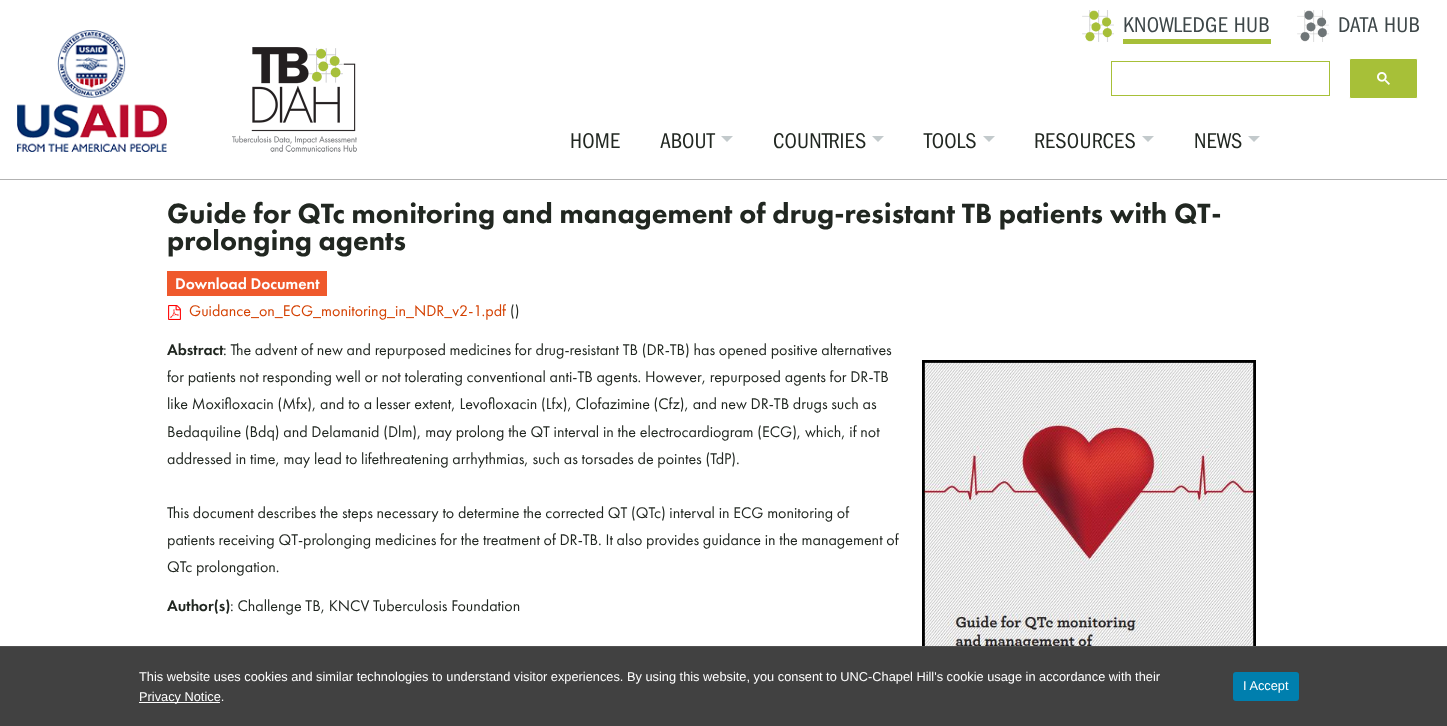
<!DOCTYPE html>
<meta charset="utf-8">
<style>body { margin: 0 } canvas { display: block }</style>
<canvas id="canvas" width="1447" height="726"></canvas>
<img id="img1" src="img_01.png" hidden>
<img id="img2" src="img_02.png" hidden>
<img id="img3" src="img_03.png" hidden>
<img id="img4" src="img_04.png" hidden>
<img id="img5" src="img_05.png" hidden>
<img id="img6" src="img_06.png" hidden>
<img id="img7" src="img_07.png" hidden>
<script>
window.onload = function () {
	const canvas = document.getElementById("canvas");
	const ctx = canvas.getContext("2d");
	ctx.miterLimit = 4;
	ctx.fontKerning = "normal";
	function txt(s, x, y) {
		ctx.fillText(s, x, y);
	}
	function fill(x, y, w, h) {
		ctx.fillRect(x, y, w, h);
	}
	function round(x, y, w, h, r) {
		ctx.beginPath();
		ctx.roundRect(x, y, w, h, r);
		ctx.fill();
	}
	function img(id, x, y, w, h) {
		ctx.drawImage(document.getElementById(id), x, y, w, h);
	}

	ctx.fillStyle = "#FFFFFF";
	fill(0, 0, 1447, 726);
	ctx.fillStyle = "#B2B2B2";
	fill(0, 179, 1447, 1);
	img("img1", 17, 30, 150, 122);
	img("img2", 232, 47, 125, 105);
	img("img3", 1082, 10, 32, 32);
	ctx.fillStyle = "#A7BF39";
	fill(1123, 39, 148, 5);
	img("img4", 1297, 10, 32, 32);
	ctx.strokeStyle = "#A7C038";
	ctx.strokeRect(1111.5, 61.5, 218, 34);
	ctx.fillStyle = "#A7C038";
	ctx.beginPath();
	ctx.roundRect(1349.5, 58.5, 68, 40, 1.5);
	ctx.fill();
	ctx.strokeStyle = "#FFFFFF";
	ctx.stroke();
	img("img5", 1377, 72, 13, 13);
	ctx.fillStyle = "#C3CACC";
	ctx.beginPath();
	ctx.moveTo(721, 136);
	ctx.lineTo(733, 136);
	ctx.lineTo(727, 142);
	ctx.closePath();
	ctx.fill();
	ctx.beginPath();
	ctx.moveTo(872, 136);
	ctx.lineTo(884, 136);
	ctx.lineTo(878, 142);
	ctx.closePath();
	ctx.fill();
	ctx.beginPath();
	ctx.moveTo(983, 136);
	ctx.lineTo(995, 136);
	ctx.lineTo(989, 142);
	ctx.closePath();
	ctx.fill();
	ctx.beginPath();
	ctx.moveTo(1142, 136);
	ctx.lineTo(1154, 136);
	ctx.lineTo(1148, 142);
	ctx.closePath();
	ctx.fill();
	ctx.beginPath();
	ctx.moveTo(1248, 136);
	ctx.lineTo(1260, 136);
	ctx.lineTo(1254, 142);
	ctx.closePath();
	ctx.fill();
	ctx.fillStyle = "#EF592C";
	fill(167, 271, 160, 25);
	img("img6", 168, 305, 13, 15);
	ctx.strokeStyle = "#000000";
	ctx.lineWidth = 2;
	ctx.strokeRect(923, 361, 332, 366);
	img("img7", 924, 362, 330, 284);
	ctx.fillStyle = "#414141";
	fill(0, 647, 1447, 79);
	ctx.fillStyle = "#515151";
	fill(0, 646, 1447, 1);
	ctx.fillStyle = "#FFFFFF";
	fill(139, 702, 81, 1);
	ctx.fillStyle = "#007FAE";
	round(1233, 672, 66, 29, 3);
	ctx.letterSpacing = "0.25px";
	ctx.font = "22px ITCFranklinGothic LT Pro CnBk";
	ctx.fillStyle = "#3E4749";
	txt("KNOWLEDGE HUB", 1123, 32);
	txt("DATA HUB", 1338, 32);
	ctx.fillStyle = "#212721";
	txt("HOME", 570, 148);
	txt("ABOUT", 660, 148);
	txt("COUNTRIES", 773, 148);
	txt("TOOLS", 924, 148);
	txt("RESOURCES", 1034, 148);
	txt("NEWS", 1194, 148);
	ctx.letterSpacing = "0px";
	ctx.font = "900 28.8px Futura PT";
	txt("Guide for QTc monitoring and management of drug-resistant TB patients with QT-", 167, 223);
	txt("prolonging agents", 167, 250);
	ctx.font = "500 16px Futura PT";
	ctx.fillStyle = "#FFFFFF";
	txt("Download Document", 175, 289);
	ctx.font = "16px Futura PT";
	ctx.fillStyle = "#D44102";
	txt("Guidance_on_ECG_monitoring_in_NDR_v2-1.pdf", 189, 316);
	ctx.fillStyle = "#212721";
	txt("()", 510, 316);
	ctx.font = "500 16px Futura PT";
	txt("Abstract", 167, 355);
	ctx.font = "16px Futura PT";
	txt(": The advent of new and repurposed medicines for drug-resistant TB (DR-TB) has opened positive alternatives", 223, 355);
	txt("for patients not responding well or not tolerating conventional anti-TB agents. However, repurposed agents for DR-TB", 167, 382);
	txt("like Moxifloxacin (Mfx), and to a lesser extent, Levofloxacin (Lfx), Clofazimine (Cfz), and new DR-TB drugs such as", 167, 409);
	txt("Bedaquiline (Bdq) and Delamanid (Dlm), may prolong the QT interval in the electrocardiogram (ECG), which, if not", 167, 437);
	txt("addressed in time, may lead to lifethreatening arrhythmias, such as torsades de pointes (TdP).", 167, 464);
	txt("This document describes the steps necessary to determine the corrected QT (QTc) interval in ECG monitoring of", 167, 518);
	txt("patients receiving QT-prolonging medicines for the treatment of DR-TB. It also provides guidance in the management of", 167, 545);
	txt("QTc prolongation.", 167, 572);
	ctx.font = "500 16px Futura PT";
	txt("Author(s)", 167, 611);
	ctx.font = "16px Futura PT";
	txt(": Challenge TB, KNCV Tuberculosis Foundation", 230, 611);
	ctx.font = "12.8px Liberation Sans";
	ctx.fillStyle = "#FFFFFF";
	txt("This website uses cookies and similar technologies to understand visitor experiences. By using this website, you consent to UNC-Chapel Hill's cookie usage in accordance with their", 139, 681);
	txt("Privacy Notice.", 139, 701);
	txt("I Accept", 1243, 690);
};
</script>
